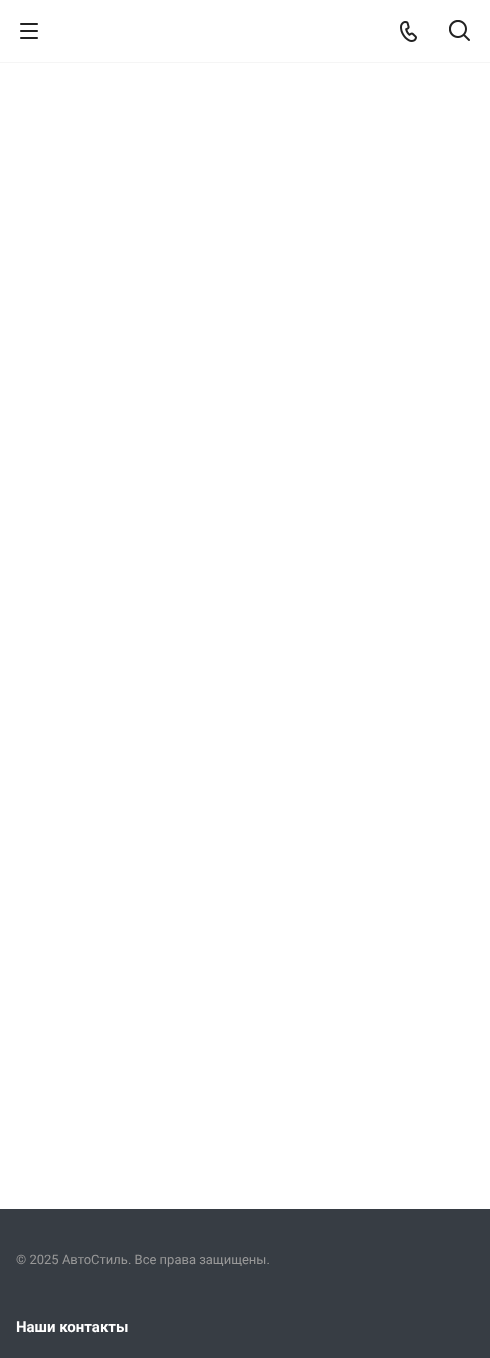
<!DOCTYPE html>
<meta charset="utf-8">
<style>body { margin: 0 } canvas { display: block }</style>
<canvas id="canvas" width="490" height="1358"></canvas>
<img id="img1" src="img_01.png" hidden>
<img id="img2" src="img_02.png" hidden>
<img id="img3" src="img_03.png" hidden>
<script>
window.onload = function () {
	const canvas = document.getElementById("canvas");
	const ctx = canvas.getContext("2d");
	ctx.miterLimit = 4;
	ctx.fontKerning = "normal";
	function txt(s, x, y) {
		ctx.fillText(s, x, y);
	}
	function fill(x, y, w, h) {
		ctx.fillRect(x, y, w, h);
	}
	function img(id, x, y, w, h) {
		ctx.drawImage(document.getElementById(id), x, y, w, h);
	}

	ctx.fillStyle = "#FFFFFF";
	fill(0, 0, 490, 1358);
	ctx.fillStyle = "#F5F5F5";
	fill(0, 62, 490, 1);
	img("img1", 20, 23, 18, 16);
	img("img2", 400, 21, 17, 21);
	img("img3", 449, 20, 21, 21);
	ctx.fillStyle = "#373D44";
	fill(0, 1209, 490, 149);
	ctx.font = "13px Roboto";
	ctx.fillStyle = "#999999";
	txt("© 2025 АвтоСтиль. Все права защищены.", 16, 1264);
	ctx.font = "bold 15px Roboto";
	ctx.fillStyle = "#FFFFFF";
	txt("Наши контакты", 16, 1332);
};
</script>
